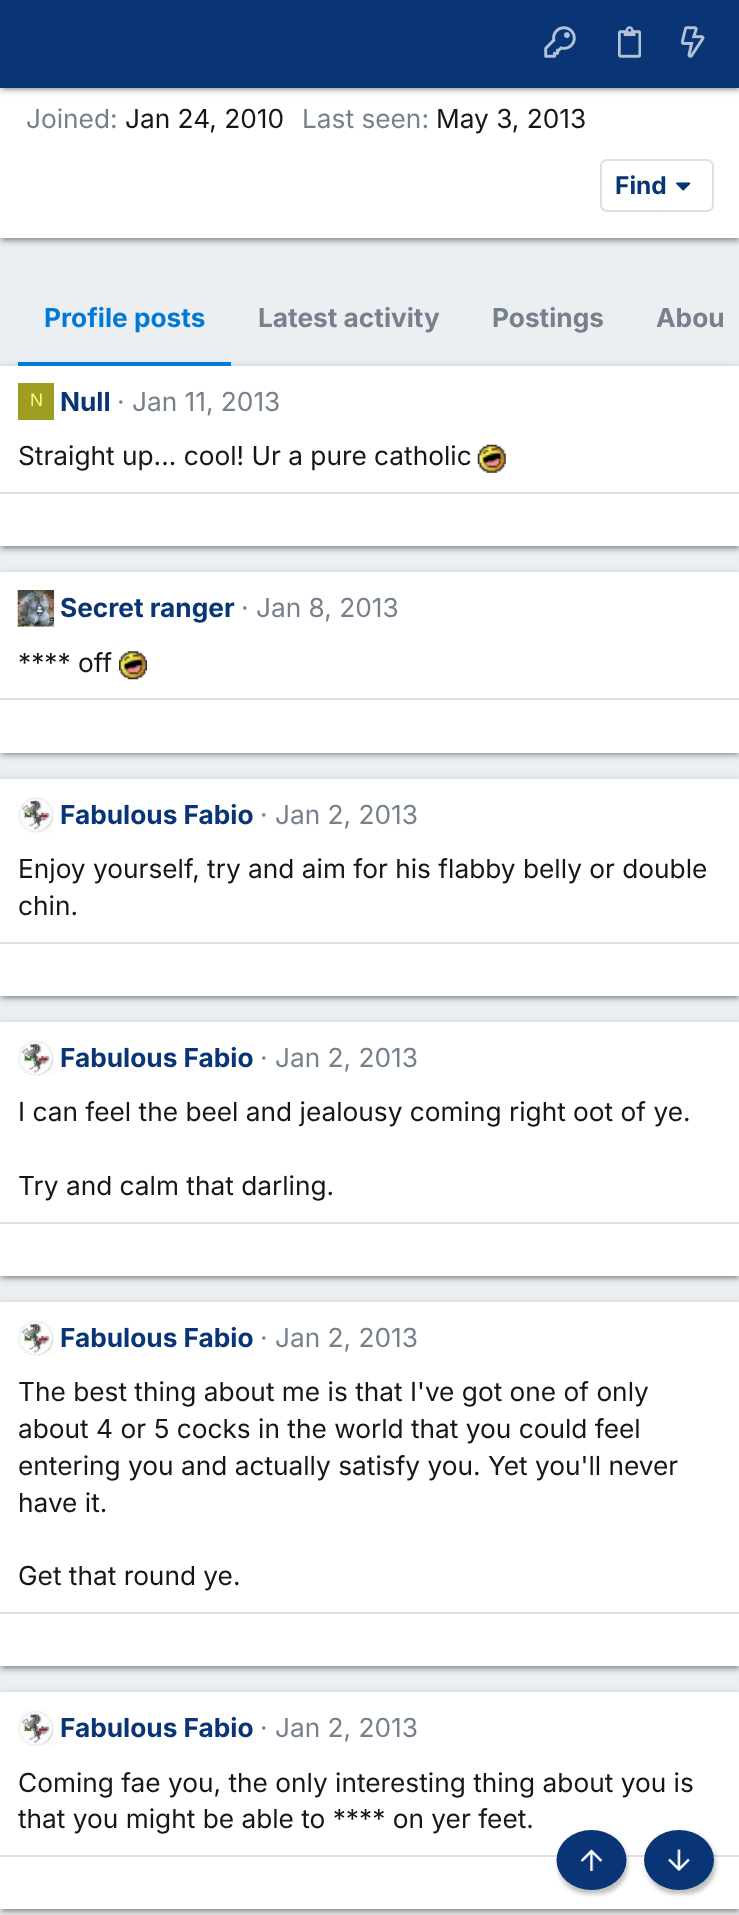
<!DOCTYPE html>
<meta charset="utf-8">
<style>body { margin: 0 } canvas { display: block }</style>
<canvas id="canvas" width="739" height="1915"></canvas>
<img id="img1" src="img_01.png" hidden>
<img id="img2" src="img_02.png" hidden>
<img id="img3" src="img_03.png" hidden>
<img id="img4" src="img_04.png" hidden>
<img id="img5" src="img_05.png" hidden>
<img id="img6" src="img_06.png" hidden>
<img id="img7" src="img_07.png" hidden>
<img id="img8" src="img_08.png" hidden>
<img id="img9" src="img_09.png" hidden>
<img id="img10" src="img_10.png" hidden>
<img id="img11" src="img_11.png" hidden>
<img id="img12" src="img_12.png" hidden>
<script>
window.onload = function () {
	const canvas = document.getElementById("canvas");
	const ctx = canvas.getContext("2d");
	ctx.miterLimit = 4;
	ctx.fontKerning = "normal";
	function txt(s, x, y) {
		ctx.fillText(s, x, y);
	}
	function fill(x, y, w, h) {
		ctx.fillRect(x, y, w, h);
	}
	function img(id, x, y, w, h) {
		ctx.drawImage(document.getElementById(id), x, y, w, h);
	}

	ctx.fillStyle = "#ECEFF1";
	fill(0, 0, 739, 1915);
	ctx.fillStyle = "rgba(0, 0, 0, 0.2)";
	ctx.filter = "blur(4.5px)";
	ctx.beginPath();
	ctx.rect(0, -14, 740, 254);
	ctx.fill();
	ctx.filter = "none";
	ctx.fillStyle = "rgba(0, 0, 0, 0.12)";
	ctx.filter = "blur(1px)";
	ctx.beginPath();
	ctx.rect(4, -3, 733, 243);
	ctx.fill();
	ctx.filter = "none";
	ctx.fillStyle = "rgba(0, 0, 0, 0.14)";
	ctx.filter = "blur(2px)";
	ctx.beginPath();
	ctx.rect(0, -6, 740, 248);
	ctx.fill();
	ctx.filter = "none";
	ctx.fillStyle = "#FFFFFF";
	fill(0, 88, 739, 150);
	ctx.fillStyle = "rgba(0, 0, 0, 0.2)";
	ctx.filter = "blur(4.5px)";
	ctx.beginPath();
	ctx.rect(0, 2, 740, 87);
	ctx.fill();
	ctx.filter = "none";
	ctx.fillStyle = "rgba(0, 0, 0, 0.12)";
	ctx.filter = "blur(1px)";
	ctx.beginPath();
	ctx.rect(4, 9, 733, 80);
	ctx.fill();
	ctx.filter = "none";
	ctx.fillStyle = "rgba(0, 0, 0, 0.14)";
	ctx.filter = "blur(2px)";
	ctx.beginPath();
	ctx.rect(0, 4, 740, 87);
	ctx.fill();
	ctx.filter = "none";
	ctx.fillStyle = "#093576";
	fill(0, 0, 739, 88);
	img("img1", 544, 26, 32, 32);
	img("img2", 618, 26, 23, 32);
	img("img3", 681, 26, 24, 32);
	ctx.beginPath();
	ctx.roundRect(601, 160, 112, 51, 6);
	ctx.strokeStyle = "#E0E0E0";
	ctx.lineWidth = 2;
	ctx.stroke();
	img("img4", 676, 182, 15, 9);
	ctx.fillStyle = "rgba(0, 0, 0, 0.2)";
	ctx.filter = "blur(4.5px)";
	ctx.beginPath();
	ctx.rect(0, 368, 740, 180);
	ctx.fill();
	ctx.filter = "none";
	ctx.fillStyle = "rgba(0, 0, 0, 0.14)";
	ctx.filter = "blur(2px)";
	ctx.beginPath();
	ctx.rect(0, 369, 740, 181);
	ctx.fill();
	ctx.filter = "none";
	ctx.fillStyle = "#007AD6";
	fill(18, 362, 213, 4);
	ctx.fillStyle = "rgba(0, 0, 0, 0.12)";
	ctx.filter = "blur(1px)";
	ctx.beginPath();
	ctx.rect(4, 375, 733, 173);
	ctx.fill();
	ctx.filter = "none";
	ctx.fillStyle = "#FFFFFF";
	fill(0, 366, 739, 180);
	ctx.fillStyle = "#9E9D24";
	fill(18, 383, 36, 37);
	img("img5", 477, 444, 29, 29);
	ctx.fillStyle = "#E0E0E0";
	fill(0, 492, 739, 2);
	ctx.fillStyle = "rgba(0, 0, 0, 0.2)";
	ctx.filter = "blur(4.5px)";
	ctx.beginPath();
	ctx.rect(0, 574, 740, 180);
	ctx.fill();
	ctx.filter = "none";
	ctx.fillStyle = "rgba(0, 0, 0, 0.12)";
	ctx.filter = "blur(1px)";
	ctx.beginPath();
	ctx.rect(4, 581, 733, 173);
	ctx.fill();
	ctx.filter = "none";
	ctx.fillStyle = "rgba(0, 0, 0, 0.14)";
	ctx.filter = "blur(2px)";
	ctx.beginPath();
	ctx.rect(0, 576, 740, 180);
	ctx.fill();
	ctx.filter = "none";
	ctx.fillStyle = "#FFFFFF";
	fill(0, 572, 739, 181);
	img("img6", 17, 590, 38, 37);
	img("img7", 119, 651, 28, 29);
	ctx.fillStyle = "#E0E0E0";
	fill(0, 698, 739, 2);
	ctx.fillStyle = "rgba(0, 0, 0, 0.2)";
	ctx.filter = "blur(4.5px)";
	ctx.beginPath();
	ctx.rect(0, 781, 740, 217);
	ctx.fill();
	ctx.filter = "none";
	ctx.fillStyle = "rgba(0, 0, 0, 0.12)";
	ctx.filter = "blur(1px)";
	ctx.beginPath();
	ctx.rect(4, 788, 733, 210);
	ctx.fill();
	ctx.filter = "none";
	ctx.fillStyle = "rgba(0, 0, 0, 0.14)";
	ctx.filter = "blur(2px)";
	ctx.beginPath();
	ctx.rect(0, 782, 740, 217);
	ctx.fill();
	ctx.filter = "none";
	ctx.fillStyle = "#FFFFFF";
	fill(0, 779, 739, 217);
	img("img8", 18, 797, 36, 36);
	ctx.fillStyle = "#E0E0E0";
	fill(0, 942, 739, 2);
	ctx.fillStyle = "rgba(0, 0, 0, 0.2)";
	ctx.filter = "blur(4.5px)";
	ctx.beginPath();
	ctx.rect(0, 1024, 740, 254);
	ctx.fill();
	ctx.filter = "none";
	ctx.fillStyle = "rgba(0, 0, 0, 0.12)";
	ctx.filter = "blur(1px)";
	ctx.beginPath();
	ctx.rect(4, 1031, 733, 247);
	ctx.fill();
	ctx.filter = "none";
	ctx.fillStyle = "rgba(0, 0, 0, 0.14)";
	ctx.filter = "blur(2px)";
	ctx.beginPath();
	ctx.rect(0, 1026, 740, 253);
	ctx.fill();
	ctx.filter = "none";
	ctx.fillStyle = "#FFFFFF";
	fill(0, 1022, 739, 254);
	img("img9", 18, 1040, 36, 36);
	ctx.fillStyle = "#E0E0E0";
	fill(0, 1222, 739, 2);
	ctx.fillStyle = "rgba(0, 0, 0, 0.2)";
	ctx.filter = "blur(4.5px)";
	ctx.beginPath();
	ctx.rect(0, 1304, 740, 364);
	ctx.fill();
	ctx.filter = "none";
	ctx.fillStyle = "rgba(0, 0, 0, 0.12)";
	ctx.filter = "blur(1px)";
	ctx.beginPath();
	ctx.rect(4, 1311, 733, 357);
	ctx.fill();
	ctx.filter = "none";
	ctx.fillStyle = "rgba(0, 0, 0, 0.14)";
	ctx.filter = "blur(2px)";
	ctx.beginPath();
	ctx.rect(0, 1306, 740, 364);
	ctx.fill();
	ctx.filter = "none";
	ctx.fillStyle = "#FFFFFF";
	fill(0, 1302, 739, 364);
	img("img9", 18, 1320, 36, 36);
	ctx.fillStyle = "#E0E0E0";
	fill(0, 1612, 739, 2);
	ctx.fillStyle = "rgba(0, 0, 0, 0.2)";
	ctx.filter = "blur(4.5px)";
	ctx.beginPath();
	ctx.rect(0, 1694, 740, 217);
	ctx.fill();
	ctx.filter = "none";
	ctx.fillStyle = "rgba(0, 0, 0, 0.12)";
	ctx.filter = "blur(1px)";
	ctx.beginPath();
	ctx.rect(4, 1701, 733, 210);
	ctx.fill();
	ctx.filter = "none";
	ctx.fillStyle = "rgba(0, 0, 0, 0.14)";
	ctx.filter = "blur(2px)";
	ctx.beginPath();
	ctx.rect(0, 1696, 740, 217);
	ctx.fill();
	ctx.filter = "none";
	ctx.fillStyle = "#FFFFFF";
	fill(0, 1692, 739, 217);
	img("img10", 18, 1710, 36, 37);
	ctx.fillStyle = "#E0E0E0";
	fill(0, 1855, 739, 2);
	ctx.fillStyle = "rgba(0, 0, 0, 0.25)";
	ctx.filter = "blur(2px)";
	ctx.beginPath();
	ctx.roundRect(558, 1834, 70, 60, 30);
	ctx.fill();
	ctx.filter = "none";
	ctx.fillStyle = "#093576";
	ctx.beginPath();
	ctx.ellipse(591.5, 1860, 35, 30, 0, 0, Math.PI * 2);
	ctx.fill();
	img("img11", 580, 1849, 23, 22);
	ctx.fillStyle = "rgba(0, 0, 0, 0.25)";
	ctx.filter = "blur(2px)";
	ctx.beginPath();
	ctx.roundRect(646, 1834, 70, 60, 30);
	ctx.fill();
	ctx.filter = "none";
	ctx.fillStyle = "#093576";
	ctx.beginPath();
	ctx.ellipse(679, 1860, 35, 30, 0, 0, Math.PI * 2);
	ctx.fill();
	img("img12", 668, 1849, 23, 22);
	ctx.font = "26.25px Inter";
	ctx.fillStyle = "#76818D";
	txt("Joined:", 26, 128);
	ctx.fillStyle = "#141618";
	txt("Jan 24, 2010", 125, 128);
	ctx.fillStyle = "#76818D";
	txt("Last seen:", 302, 128);
	ctx.fillStyle = "#141618";
	txt("May 3, 2013", 436, 128);
	ctx.font = "bold 24.5px Inter";
	ctx.fillStyle = "#093576";
	txt("Find", 615, 194);
	ctx.font = "bold 26.25px Inter";
	ctx.fillStyle = "#007AD6";
	txt("Profile posts", 44, 327);
	ctx.fillStyle = "#76818D";
	txt("Latest activity", 258, 327);
	txt("Postings", 492, 327);
	ctx.save();
	ctx.beginPath();
	ctx.rect(18, 273, 705, 93);
	ctx.clip();
	txt("Abou", 656, 327);
	ctx.restore();
	ctx.font = "18px Liberation Sans";
	ctx.fillStyle = "#F4FF81";
	txt("N", 30, 406);
	ctx.font = "bold 26.25px Inter";
	ctx.fillStyle = "#093576";
	txt("Null", 60, 411);
	ctx.font = "26.25px Inter";
	ctx.fillStyle = "#76818D";
	txt("· Jan 11, 2013", 117, 411);
	ctx.fillStyle = "#141618";
	txt("Straight up... cool! Ur a pure catholic", 18, 465);
	ctx.font = "bold 26.25px Inter";
	ctx.fillStyle = "#093576";
	txt("Secret ranger", 60, 617);
	ctx.font = "26.25px Inter";
	ctx.fillStyle = "#76818D";
	txt("· Jan 8, 2013", 241, 617);
	ctx.fillStyle = "#141618";
	txt("**** off", 18, 672);
	ctx.font = "bold 26.25px Inter";
	ctx.fillStyle = "#093576";
	txt("Fabulous Fabio", 60, 824);
	ctx.font = "26.25px Inter";
	ctx.fillStyle = "#76818D";
	txt("· Jan 2, 2013", 260, 824);
	ctx.fillStyle = "#141618";
	txt("Enjoy yourself, try and aim for his flabby belly or double", 18, 878);
	txt("chin.", 18, 915);
	ctx.font = "bold 26.25px Inter";
	ctx.fillStyle = "#093576";
	txt("Fabulous Fabio", 60, 1067);
	ctx.font = "26.25px Inter";
	ctx.fillStyle = "#76818D";
	txt("· Jan 2, 2013", 260, 1067);
	ctx.fillStyle = "#141618";
	txt("I can feel the beel and jealousy coming right oot of ye.", 18, 1121);
	txt("Try and calm that darling.", 18, 1195);
	ctx.font = "bold 26.25px Inter";
	ctx.fillStyle = "#093576";
	txt("Fabulous Fabio", 60, 1347);
	ctx.font = "26.25px Inter";
	ctx.fillStyle = "#76818D";
	txt("· Jan 2, 2013", 260, 1347);
	ctx.fillStyle = "#141618";
	txt("The best thing about me is that I've got one of only", 18, 1401);
	txt("about 4 or 5 cocks in the world that you could feel", 18, 1438);
	txt("entering you and actually satisfy you. Yet you'll never", 18, 1475);
	txt("have it.", 18, 1512);
	txt("Get that round ye.", 18, 1585);
	ctx.font = "bold 26.25px Inter";
	ctx.fillStyle = "#093576";
	txt("Fabulous Fabio", 60, 1737);
	ctx.font = "26.25px Inter";
	ctx.fillStyle = "#76818D";
	txt("· Jan 2, 2013", 260, 1737);
	ctx.fillStyle = "#141618";
	txt("Coming fae you, the only interesting thing about you is", 18, 1792);
	txt("that you might be able to **** on yer feet.", 18, 1828);
};
</script>
